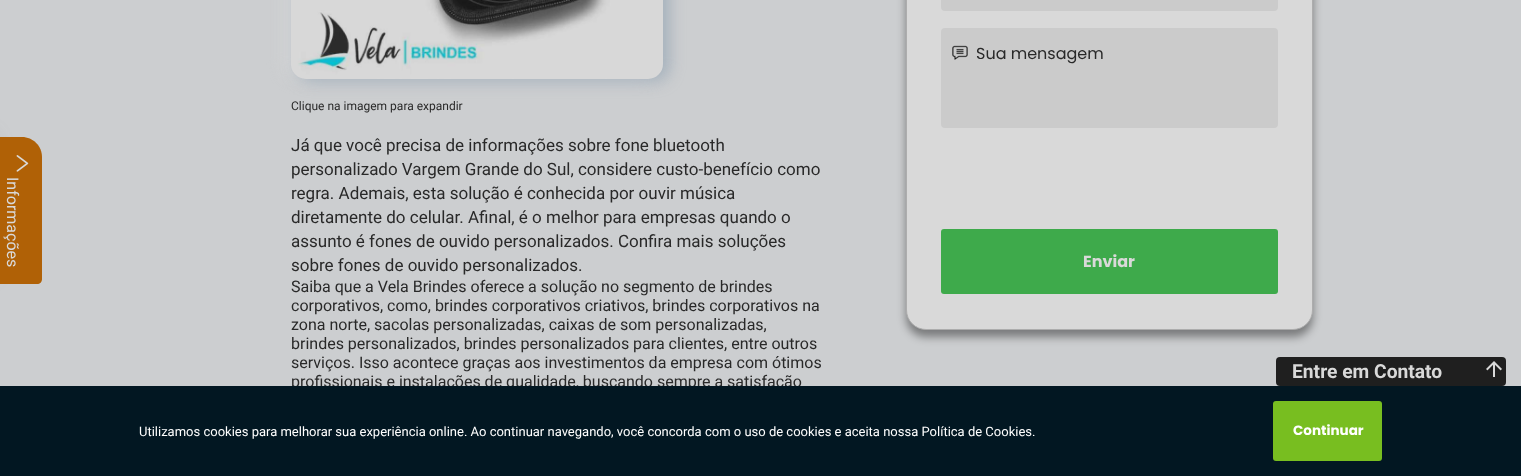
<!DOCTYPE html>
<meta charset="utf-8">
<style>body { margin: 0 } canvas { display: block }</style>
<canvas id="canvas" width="1521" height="476"></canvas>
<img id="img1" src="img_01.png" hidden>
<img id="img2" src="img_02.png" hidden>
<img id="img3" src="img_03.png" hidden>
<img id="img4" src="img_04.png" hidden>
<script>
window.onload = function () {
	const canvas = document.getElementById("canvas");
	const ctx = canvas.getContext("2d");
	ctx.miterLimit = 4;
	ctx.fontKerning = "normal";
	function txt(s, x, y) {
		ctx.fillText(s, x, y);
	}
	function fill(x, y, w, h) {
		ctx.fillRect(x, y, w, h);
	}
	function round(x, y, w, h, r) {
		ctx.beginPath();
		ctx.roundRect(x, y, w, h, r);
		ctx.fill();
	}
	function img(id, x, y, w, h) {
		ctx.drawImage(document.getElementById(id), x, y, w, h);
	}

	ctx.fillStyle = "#CCCED0";
	fill(0, 0, 1521, 476);
	ctx.fillStyle = "rgba(217, 217, 217, 0.8)";
	ctx.filter = "blur(8px)";
	ctx.beginPath();
	ctx.roundRect(285, -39, 372, 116, 15);
	ctx.fill();
	ctx.filter = "none";
	ctx.fillStyle = "rgba(116, 140, 162, 0.48)";
	ctx.filter = "blur(8px)";
	ctx.beginPath();
	ctx.roundRect(297, -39, 372, 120, 15);
	ctx.fill();
	ctx.filter = "none";
	img("img1", 291, 0, 372, 79);
	ctx.fillStyle = "rgba(0, 0, 0, 0.4)";
	ctx.filter = "blur(4.5px)";
	ctx.beginPath();
	ctx.roundRect(906, -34, 407, 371, 20);
	ctx.fill();
	ctx.filter = "none";
	ctx.fillStyle = "#D9D9D9";
	ctx.beginPath();
	ctx.roundRect(906.5, -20.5, 406, 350, 19.5);
	ctx.fill();
	ctx.strokeStyle = "#ADADAD";
	ctx.stroke();
	ctx.fillStyle = "#CBCBCB";
	round(941, -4, 337, 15, 4);
	round(941, 28, 337, 100, 4);
	img("img2", 952, 45, 16, 15);
	ctx.fillStyle = "#3EAA4B";
	round(941, 229, 337, 65, 3);
	ctx.fillStyle = "#717171";
	ctx.filter = "blur(12px)";
	ctx.beginPath();
	ctx.rect(-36, 143, 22, 124);
	ctx.fill();
	ctx.filter = "none";
	ctx.fillStyle = "#B06106";
	ctx.beginPath();
	ctx.moveTo(42, 157);
	ctx.lineTo(42, 279);
	ctx.bezierCurveTo(42, 282, 40, 284, 37, 284);
	ctx.lineTo(-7, 284);
	ctx.lineTo(-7, 137);
	ctx.lineTo(22, 137);
	ctx.bezierCurveTo(33, 137, 42, 146, 42, 157);
	ctx.closePath();
	ctx.fill();
	img("img3", 16, 155, 13, 17);
	ctx.fillStyle = "#1F1F1F";
	round(1276, 357, 230, 29, 4);
	img("img4", 1486, 361, 16, 16);
	ctx.font = "12px Roboto";
	ctx.fillStyle = "#292929";
	txt("Clique na imagem para expandir", 291, 110);
	ctx.font = "17px Roboto";
	txt("Já que você precisa de informações sobre fone bluetooth", 291, 151);
	txt("personalizado Vargem Grande do Sul, considere custo-benefício como", 291, 175);
	txt("regra. Ademais, esta solução é conhecida por ouvir música", 291, 199);
	txt("diretamente do celular. Afinal, é o melhor para empresas quando o", 291, 223);
	txt("assunto é fones de ouvido personalizados. Confira mais soluções", 291, 247);
	txt("sobre fones de ouvido personalizados.", 291, 271);
	ctx.font = "16px Roboto";
	txt("Saiba que a Vela Brindes oferece a solução no segmento de brindes", 291, 292);
	txt("corporativos, como, brindes corporativos criativos, brindes corporativos na", 291, 311);
	txt("zona norte, sacolas personalizadas, caixas de som personalizadas,", 291, 330);
	txt("brindes personalizados, brindes personalizados para clientes, entre outros", 291, 349);
	txt("serviços. Isso acontece graças aos investimentos da empresa com ótimos", 291, 368);
	txt("profissionais e instalações de qualidade, buscando sempre a satisfação", 291, 387);
	ctx.font = "16px Poppins";
	txt("Sua mensagem", 976, 59);
	ctx.font = "bold 16px Poppins";
	ctx.fillStyle = "#D9D9D9";
	txt("Enviar", 1083, 267);
	ctx.font = "16px Roboto";
	ctx.save();
	ctx.translate(7, 177);
	ctx.rotate(90 * Math.PI / 180);
	ctx.fillText("Informações", 0, 0);
	ctx.restore();
	ctx.font = "bold 19.25px Roboto";
	txt("Entre em Contato", 1292, 378);
	ctx.fillStyle = "#021722";
	fill(0, 386, 1521, 90);
	ctx.font = "13px Roboto";
	ctx.fillStyle = "#FFFFFF";
	txt("Utilizamos cookies para melhorar sua experiência online. Ao continuar navegando, você concorda com o uso de cookies e aceita nossa Política de Cookies.", 139, 436);
	ctx.fillStyle = "#78BE20";
	round(1273, 401, 109, 60, 3);
	ctx.font = "bold 13.5px Poppins";
	ctx.fillStyle = "#FFFFFF";
	txt("Continuar", 1293, 435);
};
</script>
